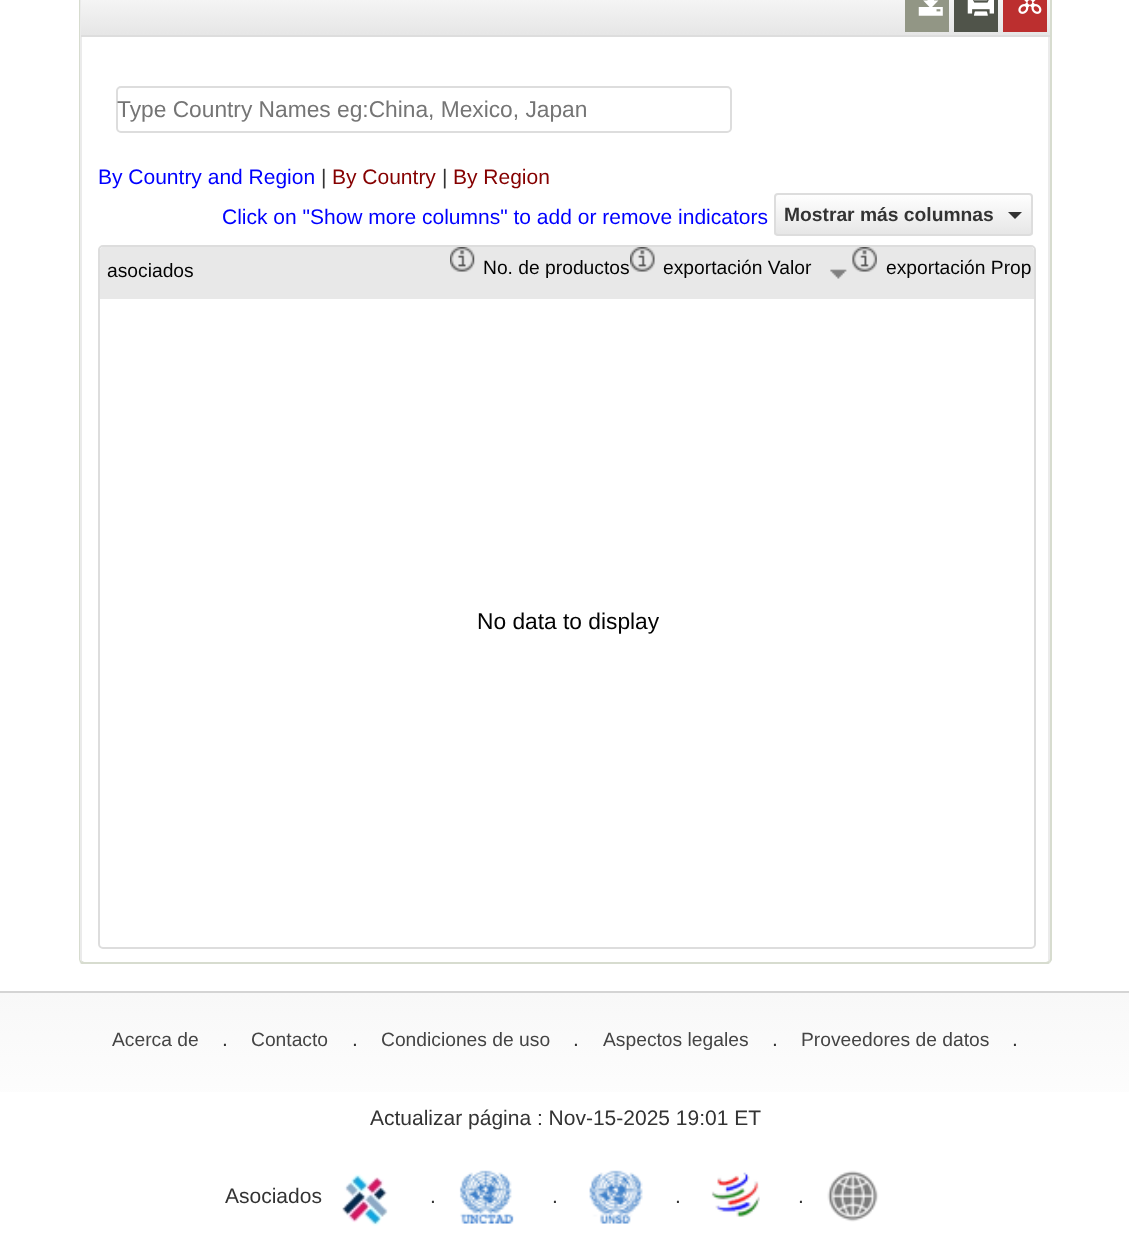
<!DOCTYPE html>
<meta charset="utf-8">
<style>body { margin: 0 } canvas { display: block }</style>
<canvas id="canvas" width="1129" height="1236"></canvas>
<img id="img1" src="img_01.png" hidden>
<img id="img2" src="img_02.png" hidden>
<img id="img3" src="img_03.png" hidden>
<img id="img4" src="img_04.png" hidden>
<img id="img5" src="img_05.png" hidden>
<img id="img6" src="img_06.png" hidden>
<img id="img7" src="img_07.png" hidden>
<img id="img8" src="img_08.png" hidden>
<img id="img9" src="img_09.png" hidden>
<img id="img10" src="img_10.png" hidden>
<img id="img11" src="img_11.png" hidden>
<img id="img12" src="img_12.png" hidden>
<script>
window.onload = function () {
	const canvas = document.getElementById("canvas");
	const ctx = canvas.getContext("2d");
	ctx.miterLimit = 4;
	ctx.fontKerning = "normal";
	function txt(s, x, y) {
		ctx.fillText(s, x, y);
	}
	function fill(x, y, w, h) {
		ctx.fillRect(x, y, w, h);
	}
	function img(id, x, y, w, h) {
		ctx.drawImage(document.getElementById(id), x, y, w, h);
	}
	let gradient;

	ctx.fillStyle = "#FFFFFF";
	fill(0, 0, 1129, 1236);
	ctx.fillStyle = "#EBEBEB";
	ctx.beginPath();
	ctx.moveTo(84, -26);
	ctx.bezierCurveTo(82, -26, 80, -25, 80, -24);
	ctx.lineTo(80, 959);
	ctx.bezierCurveTo(80, 961, 82, 962, 84, 962);
	ctx.lineTo(1046, 962);
	ctx.bezierCurveTo(1048, 962, 1050, 961, 1050, 959);
	ctx.lineTo(1050, -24);
	ctx.bezierCurveTo(1050, -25, 1048, -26, 1046, -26);
	ctx.closePath();
	ctx.moveTo(1048, -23);
	ctx.lineTo(82, -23);
	ctx.lineTo(82, 961);
	ctx.bezierCurveTo(82, 962, 83, 962, 84, 962);
	ctx.lineTo(1046, 962);
	ctx.bezierCurveTo(1047, 962, 1048, 962, 1048, 961);
	ctx.closePath();
	ctx.fill("evenodd");
	ctx.fillStyle = "#D7DCCF";
	ctx.beginPath();
	ctx.moveTo(1052, 960);
	ctx.lineTo(1050, 963);
	ctx.lineTo(1049, 961);
	ctx.lineTo(1050, 959);
	ctx.lineTo(1050, -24);
	ctx.lineTo(1049, -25);
	ctx.lineTo(1051, -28);
	ctx.lineTo(1052, -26);
	ctx.closePath();
	ctx.fill();
	ctx.beginPath();
	ctx.moveTo(1050, 963);
	ctx.bezierCurveTo(1049, 964, 1048, 964, 1046, 964);
	ctx.lineTo(84, 964);
	ctx.bezierCurveTo(82, 964, 81, 964, 80, 963);
	ctx.lineTo(82, 961);
	ctx.lineTo(84, 962);
	ctx.lineTo(1046, 962);
	ctx.lineTo(1049, 961);
	ctx.closePath();
	ctx.fill();
	ctx.beginPath();
	ctx.moveTo(80, 963);
	ctx.bezierCurveTo(80, 962, 79, 960, 79, 959);
	ctx.lineTo(79, -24);
	ctx.lineTo(80, -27);
	ctx.lineTo(81, -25);
	ctx.lineTo(80, -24);
	ctx.lineTo(80, 959);
	ctx.bezierCurveTo(80, 960, 81, 961, 82, 961);
	ctx.closePath();
	ctx.fill();
	gradient = ctx.createLinearGradient(565, -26, 565, 35);
	gradient.addColorStop(0, "#FFFFFF");
	gradient.addColorStop(1, "#E6E6E6");
	ctx.fillStyle = gradient;
	fill(81, 0, 969, 35);
	ctx.fillStyle = "#DDDDDD";
	fill(81, 35, 969, 2);
	ctx.fillStyle = "#929685";
	fill(905, 0, 44, 32);
	img("img1", 918, 0, 25, 16);
	ctx.fillStyle = "#50544A";
	fill(954, 0, 44, 32);
	img("img2", 967, 0, 27, 16);
	ctx.fillStyle = "#BC2F2F";
	fill(1003, 0, 44, 32);
	img("img3", 1018, 0, 24, 14);
	ctx.beginPath();
	ctx.roundRect(117, 87, 614, 45, 4);
	ctx.strokeStyle = "#DDDDDD";
	ctx.lineWidth = 2;
	ctx.stroke();
	ctx.save();
	ctx.beginPath();
	ctx.roundRect(774, 193, 259, 43, 4);
	ctx.clip();
	gradient = ctx.createLinearGradient(903, 194, 903, 235);
	gradient.addColorStop(0, "#FFFFFF");
	gradient.addColorStop(1, "#E6E6E6");
	ctx.fillStyle = gradient;
	fill(774, 194, 259, 41);
	ctx.restore();
	ctx.beginPath();
	ctx.roundRect(775, 194, 257, 41, 3);
	ctx.stroke();
	ctx.fillStyle = "#333333";
	ctx.beginPath();
	ctx.moveTo(1008, 212);
	ctx.lineTo(1022, 212);
	ctx.lineTo(1015, 219);
	ctx.closePath();
	ctx.fill();
	ctx.beginPath();
	ctx.roundRect(99, 246, 936, 702, 4);
	ctx.stroke();
	ctx.fillStyle = "#E8E8E8";
	ctx.beginPath();
	ctx.roundRect(100, 247, 934, 52, [4, 4, 0, 0]);
	ctx.fill();
	ctx.beginPath();
	ctx.roundRect(100, 247, 350, 52, [4, 0, 0, 0]);
	ctx.fill();
	img("img4", 450, 247, 25, 25);
	img("img5", 630, 247, 25, 25);
	img("img6", 830, 269, 17, 10);
	ctx.save();
	ctx.beginPath();
	ctx.roundRect(100, 247, 934, 700, 4);
	ctx.clip();
	fill(852, 247, 181, 52);
	ctx.restore();
	img("img7", 852, 247, 25, 25);
	gradient = ctx.createLinearGradient(565, 992, 565, 1148);
	gradient.addColorStop(0, "#F8F8F8");
	gradient.addColorStop(1, "#FFFFFF");
	ctx.fillStyle = gradient;
	fill(0, 993, 1129, 99);
	ctx.fillStyle = "#D4D4D4";
	fill(0, 991, 1129, 2);
	img("img8", 342, 1174, 46, 52);
	img("img9", 459, 1170, 55, 54);
	img("img10", 589, 1170, 54, 54);
	img("img11", 711, 1172, 49, 45);
	img("img12", 827, 1170, 52, 52);
	ctx.font = "22.75px Liberation Sans";
	ctx.fillStyle = "#757575";
	txt("Type Country Names eg:China, Mexico, Japan", 117, 117);
	ctx.font = "21px Liberation Sans";
	ctx.fillStyle = "#0000FF";
	txt("By Country and Region", 98, 184);
	ctx.fillStyle = "#333333";
	txt("|", 321, 184);
	ctx.fillStyle = "#850000";
	txt("By Country", 332, 184);
	ctx.fillStyle = "#333333";
	txt("|", 442, 184);
	ctx.fillStyle = "#850000";
	txt("By Region", 453, 184);
	ctx.fillStyle = "#0000FF";
	txt("Click on \"Show more columns\" to add or remove indicators", 222, 224);
	ctx.font = "bold 19.25px Liberation Sans";
	ctx.fillStyle = "#333333";
	txt("Mostrar más columnas", 784, 221);
	ctx.font = "19.25px Liberation Sans";
	ctx.fillStyle = "#030303";
	txt("asociados", 107, 277);
	txt("No. de productos", 483, 274);
	txt("exportación Valor", 663, 274);
	txt("exportación Prop", 886, 274);
	ctx.font = "22.75px Liberation Sans";
	txt("No data to display", 477, 629);
	ctx.font = "19.25px Liberation Sans";
	ctx.fillStyle = "#444444";
	txt("Acerca de", 112, 1046);
	ctx.font = "21px Liberation Sans";
	ctx.fillStyle = "#333333";
	txt(".", 222, 1046);
	ctx.font = "19.25px Liberation Sans";
	ctx.fillStyle = "#444444";
	txt("Contacto", 251, 1046);
	ctx.font = "21px Liberation Sans";
	ctx.fillStyle = "#333333";
	txt(".", 352, 1046);
	ctx.font = "19.25px Liberation Sans";
	ctx.fillStyle = "#444444";
	txt("Condiciones de uso", 381, 1046);
	ctx.font = "21px Liberation Sans";
	ctx.fillStyle = "#333333";
	txt(".", 573, 1046);
	ctx.font = "19.25px Liberation Sans";
	ctx.fillStyle = "#444444";
	txt("Aspectos legales", 603, 1046);
	ctx.font = "21px Liberation Sans";
	ctx.fillStyle = "#333333";
	txt(".", 772, 1046);
	ctx.font = "19.25px Liberation Sans";
	ctx.fillStyle = "#444444";
	txt("Proveedores de datos", 801, 1046);
	ctx.font = "21px Liberation Sans";
	ctx.fillStyle = "#333333";
	txt(".", 1012, 1046);
	txt("Actualizar página : Nov-15-2025 19:01 ET", 370, 1125);
	txt("Asociados", 225, 1203);
	txt(".", 430, 1203);
	txt(".", 552, 1203);
	txt(".", 675, 1203);
	txt(".", 798, 1203);
};
</script>
